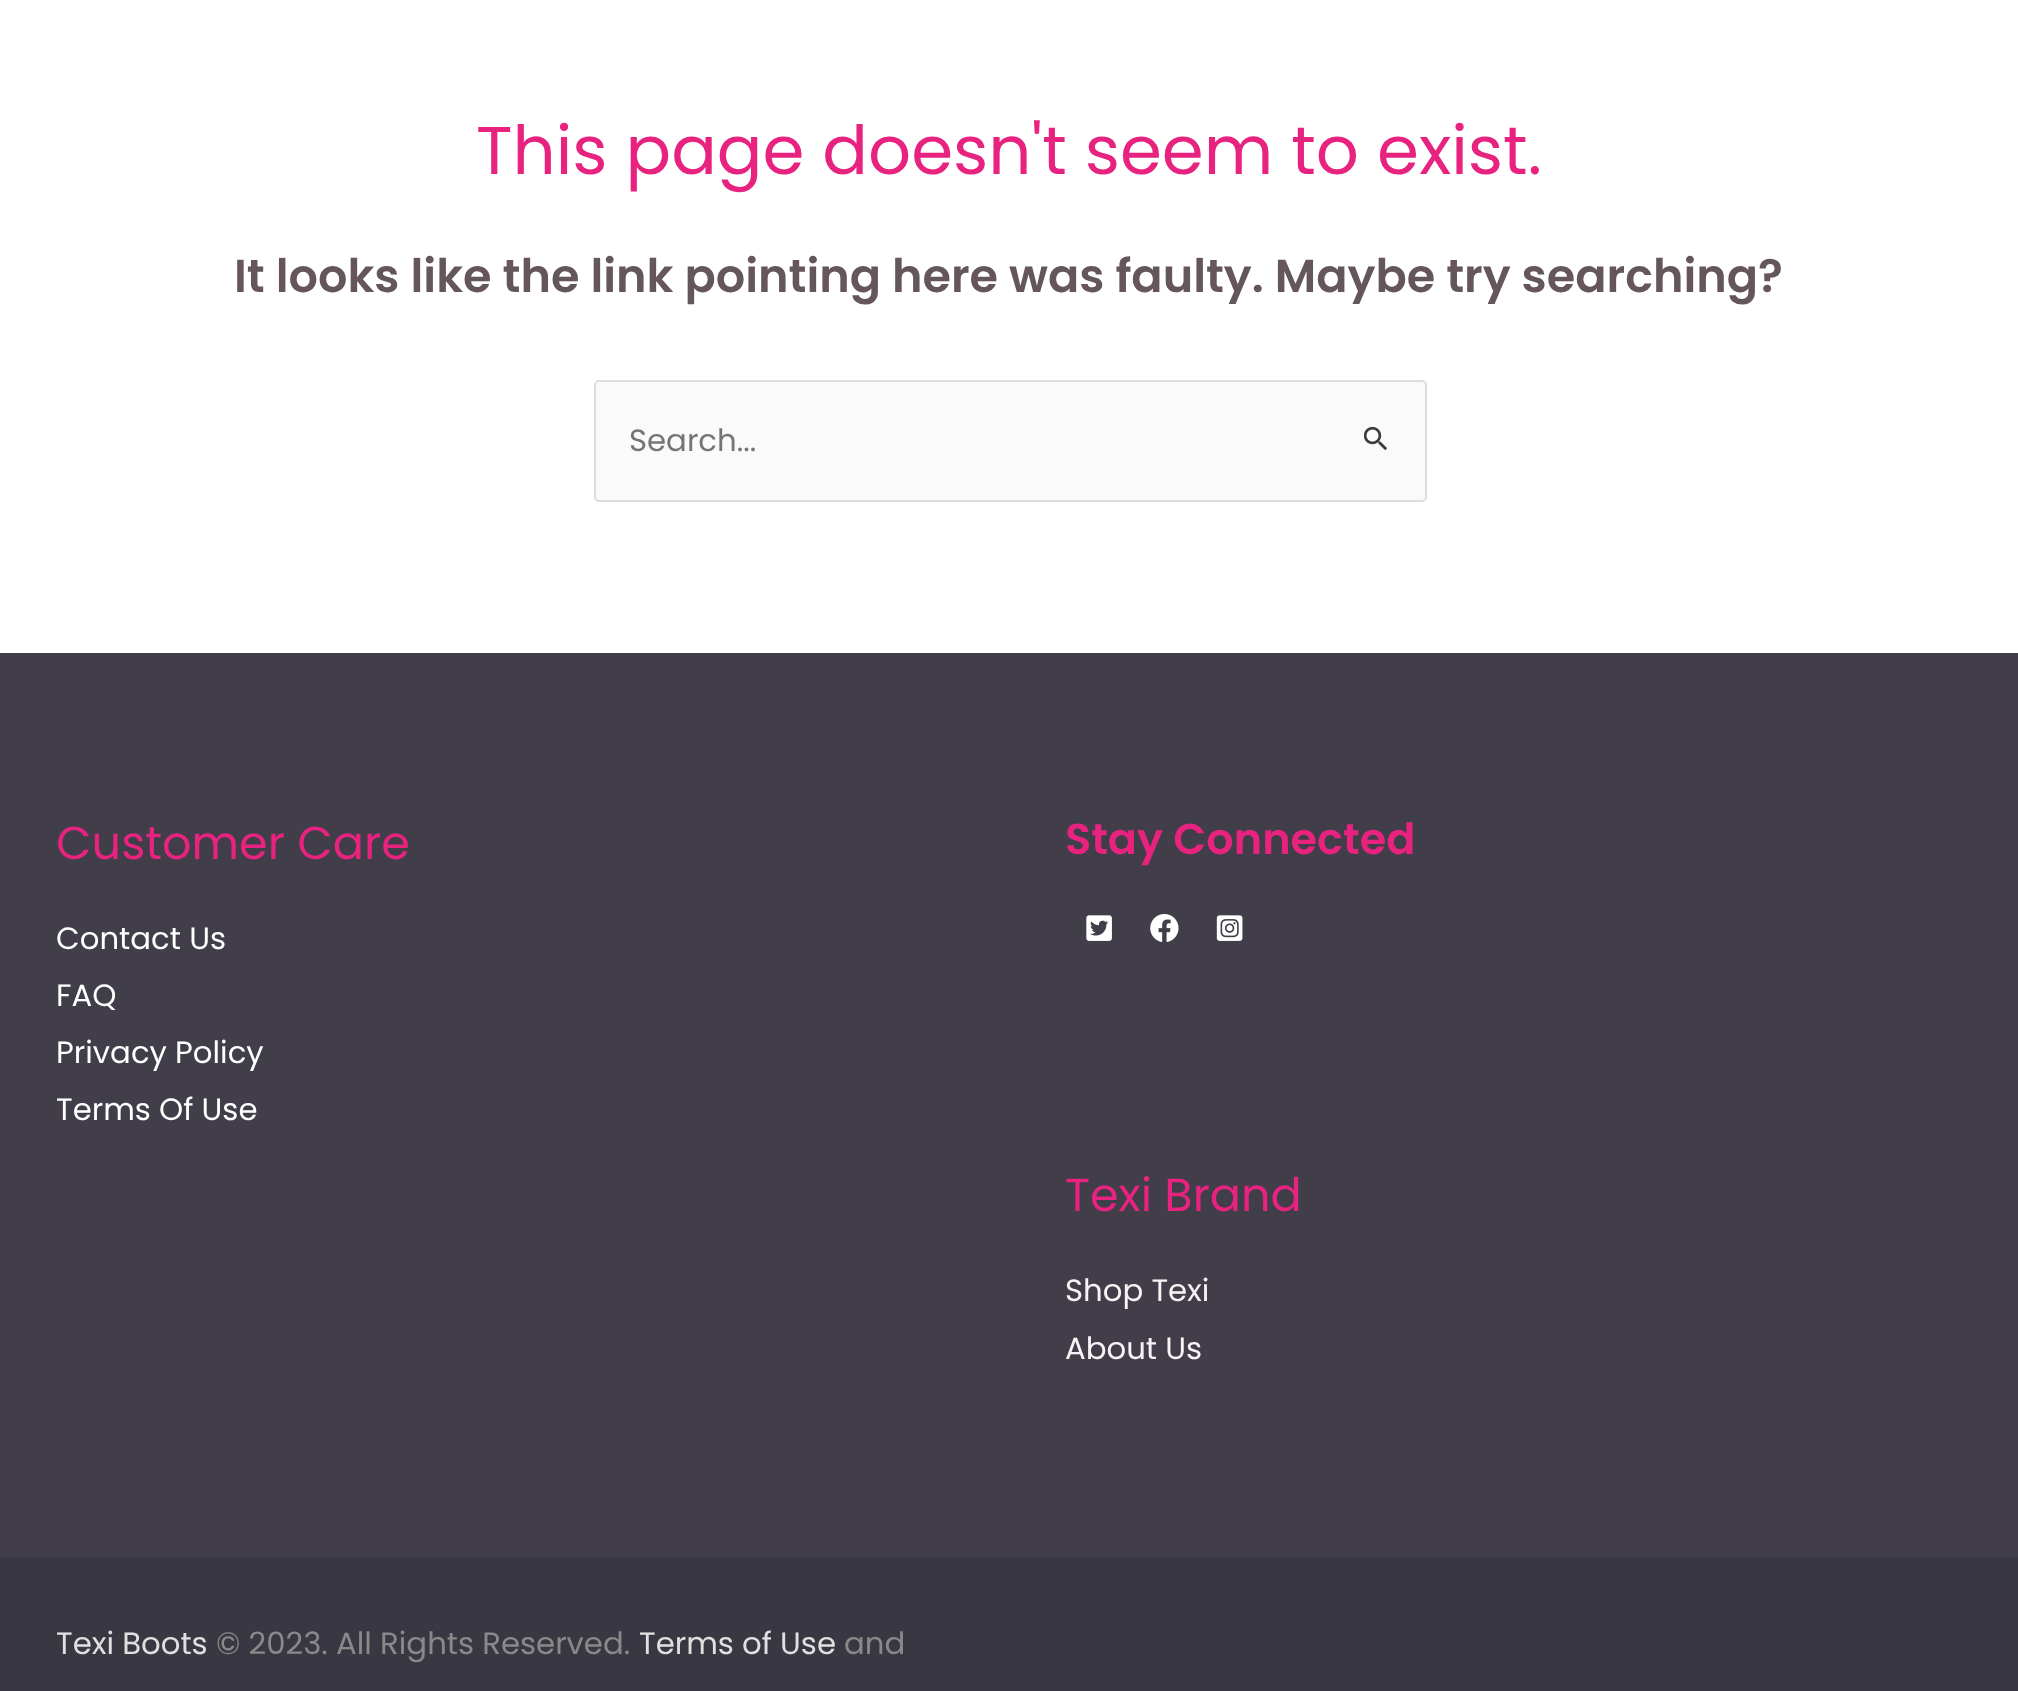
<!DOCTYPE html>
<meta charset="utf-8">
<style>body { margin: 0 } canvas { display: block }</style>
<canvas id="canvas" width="2018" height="1691"></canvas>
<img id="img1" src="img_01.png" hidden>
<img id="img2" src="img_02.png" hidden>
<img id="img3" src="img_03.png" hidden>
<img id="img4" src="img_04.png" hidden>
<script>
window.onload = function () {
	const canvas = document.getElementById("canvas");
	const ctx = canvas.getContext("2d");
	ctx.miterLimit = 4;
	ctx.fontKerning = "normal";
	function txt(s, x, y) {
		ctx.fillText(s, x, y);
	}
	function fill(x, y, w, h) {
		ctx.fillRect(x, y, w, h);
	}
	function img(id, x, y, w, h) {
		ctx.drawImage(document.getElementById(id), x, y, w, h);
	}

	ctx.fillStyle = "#FFFFFF";
	fill(0, 0, 2018, 1691);
	ctx.fillStyle = "#FAFAFA";
	ctx.beginPath();
	ctx.roundRect(595, 381, 831, 120, 4);
	ctx.fill();
	ctx.strokeStyle = "#DDDDDD";
	ctx.lineWidth = 2;
	ctx.stroke();
	img("img1", 1364, 426, 23, 25);
	ctx.fillStyle = "#413E49";
	fill(0, 653, 2018, 904);
	img("img2", 1086, 915, 26, 26);
	img("img3", 1150, 914, 29, 29);
	img("img4", 1216, 915, 27, 26);
	ctx.fillStyle = "#393741";
	fill(0, 1557, 2018, 134);
	ctx.font = "67.5px Poppins";
	ctx.fillStyle = "#E7237F";
	txt("This page doesn't seem to exist.", 476, 174);
	ctx.font = "600 46.15px Poppins";
	ctx.fillStyle = "#645659";
	txt("It looks like the link pointing here was faulty. Maybe try searching?", 234, 292);
	ctx.font = "30.75px Poppins";
	ctx.fillStyle = "#757575";
	txt("Search...", 629, 451);
	ctx.font = "46.15px Poppins";
	ctx.fillStyle = "#E7237F";
	txt("Customer Care", 56, 859);
	ctx.font = "30.75px Poppins";
	ctx.fillStyle = "#FFFFFF";
	txt("Contact Us", 56, 949);
	txt("FAQ", 56, 1006);
	txt("Privacy Policy", 56, 1063);
	txt("Terms Of Use", 56, 1120);
	ctx.font = "600 43px Poppins";
	ctx.fillStyle = "#E7237F";
	txt("Stay Connected", 1065, 854);
	ctx.font = "46.15px Poppins";
	txt("Texi Brand", 1065, 1211);
	ctx.font = "30.75px Poppins";
	ctx.fillStyle = "#F8F3F5";
	txt("Shop Texi", 1065, 1301);
	txt("About Us", 1065, 1359);
	ctx.fillStyle = "#E0E0E0";
	txt("Texi Boots", 56, 1654);
	ctx.fillStyle = "#8A898A";
	txt("© 2023. All Rights Reserved.", 216, 1654);
	ctx.fillStyle = "#E0E0E0";
	txt("Terms of Use", 639, 1654);
	ctx.fillStyle = "#8A898A";
	txt("and", 844, 1654);
};
</script>
